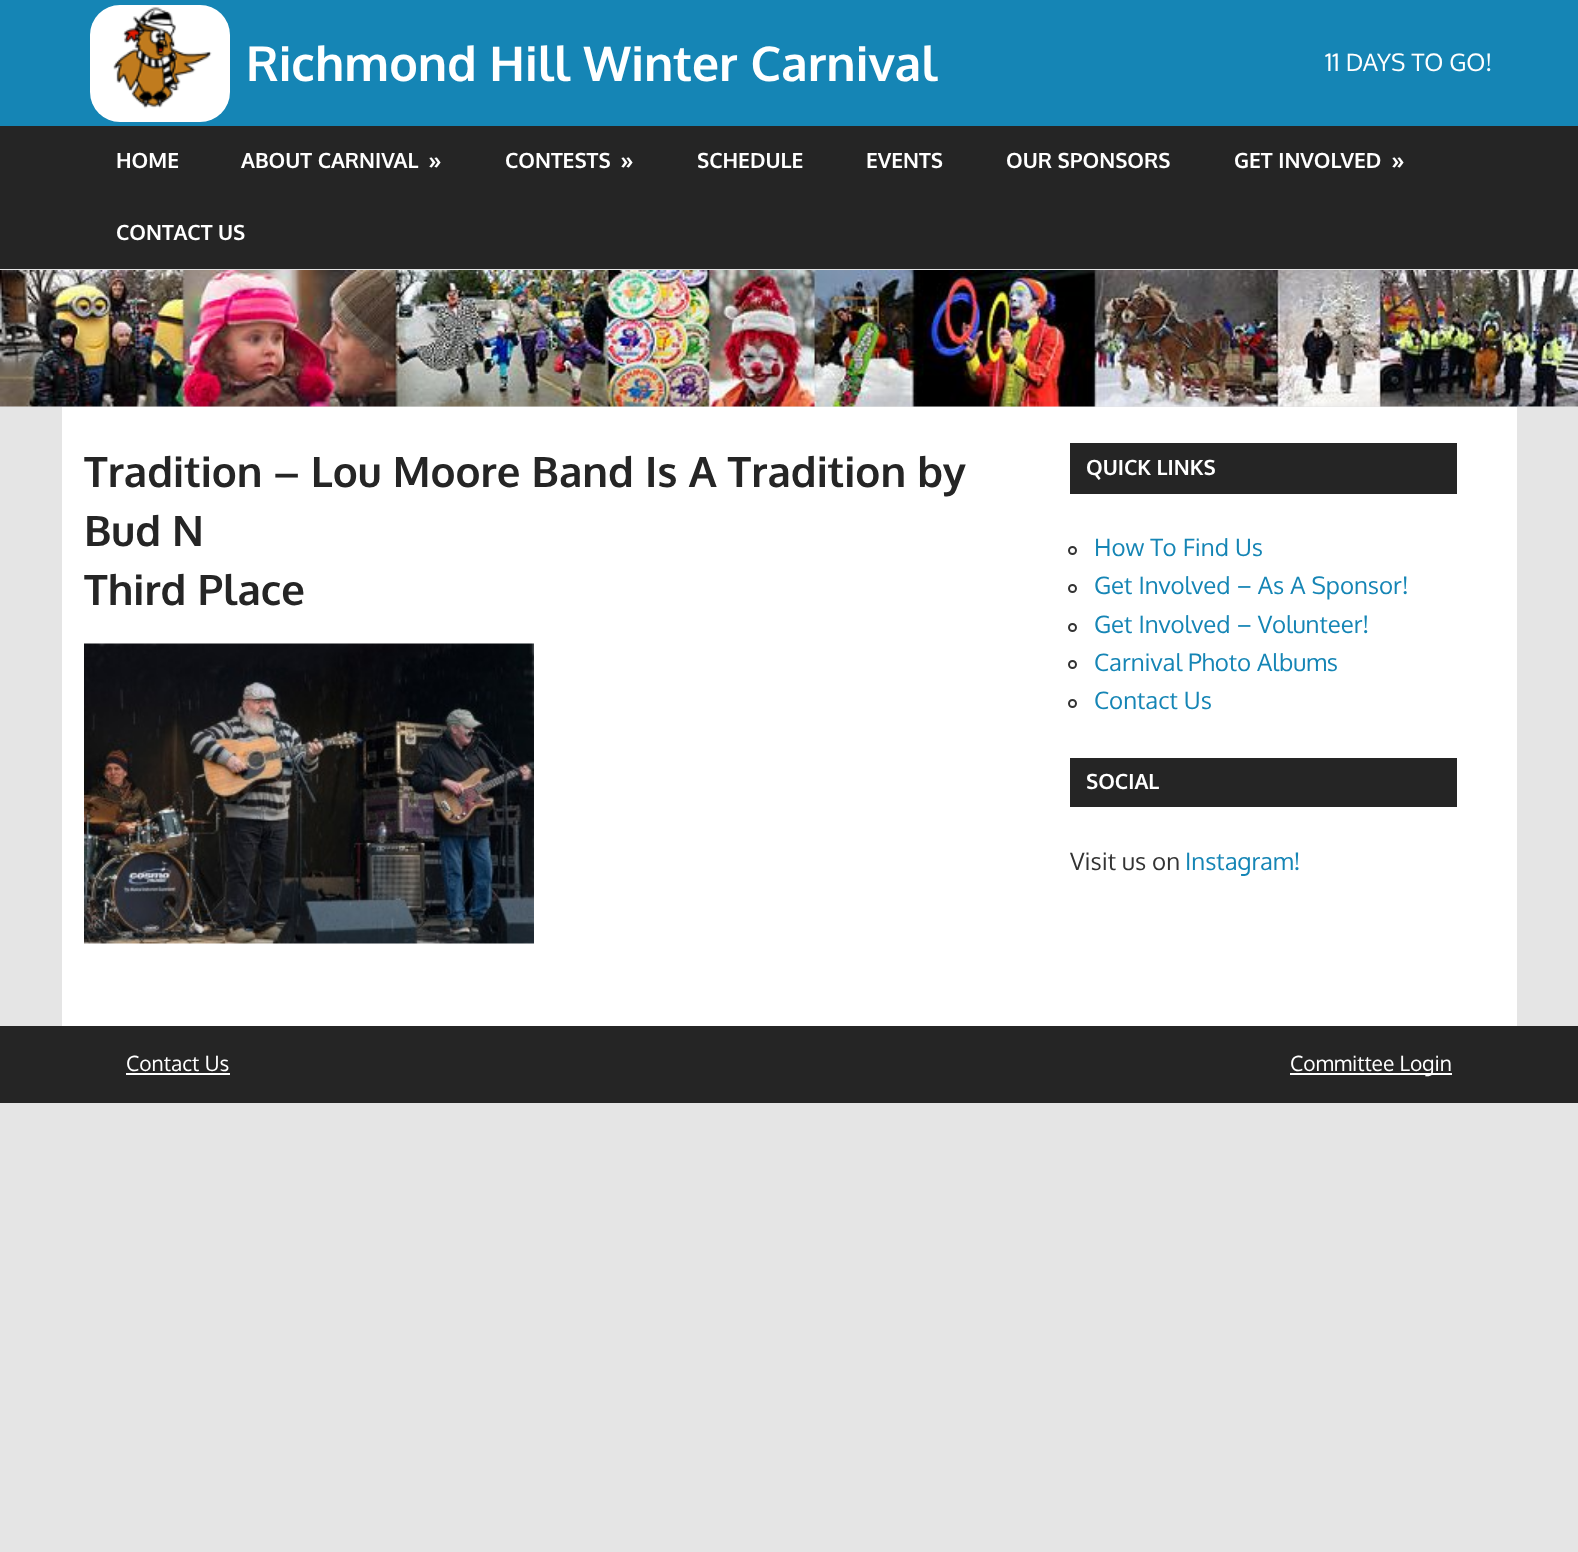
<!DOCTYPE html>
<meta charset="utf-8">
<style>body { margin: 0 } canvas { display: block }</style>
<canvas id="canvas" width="1578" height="1552"></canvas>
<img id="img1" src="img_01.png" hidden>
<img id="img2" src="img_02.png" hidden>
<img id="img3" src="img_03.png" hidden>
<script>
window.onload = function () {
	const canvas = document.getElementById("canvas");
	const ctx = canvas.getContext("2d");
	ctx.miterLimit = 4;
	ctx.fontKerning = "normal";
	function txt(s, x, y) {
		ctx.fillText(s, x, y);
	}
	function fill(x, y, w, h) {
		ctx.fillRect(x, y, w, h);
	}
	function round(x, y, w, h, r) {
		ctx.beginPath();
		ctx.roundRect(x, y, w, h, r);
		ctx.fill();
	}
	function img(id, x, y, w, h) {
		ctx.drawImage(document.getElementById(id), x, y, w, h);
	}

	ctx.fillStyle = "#E5E5E5";
	fill(0, 0, 1578, 1552);
	ctx.fillStyle = "#1585B5";
	fill(0, 0, 1578, 126);
	ctx.fillStyle = "#FFFFFF";
	round(90, 5, 140, 117, 30);
	img("img1", 113, 7, 99, 102);
	ctx.fillStyle = "#252525";
	fill(0, 126, 1578, 143);
	img("img2", 0, 270, 1578, 137);
	ctx.fillStyle = "#FFFFFF";
	fill(62, 407, 1455, 619);
	img("img3", 84, 643, 450, 301);
	ctx.fillStyle = "#252525";
	fill(1070, 443, 387, 51);
	ctx.beginPath();
	ctx.arc(1072.5, 550.5, 3.5, 0, Math.PI * 2);
	ctx.strokeStyle = "#333333";
	ctx.lineWidth = 2;
	ctx.stroke();
	ctx.beginPath();
	ctx.arc(1072.5, 588.5, 3.5, 0, Math.PI * 2);
	ctx.stroke();
	ctx.beginPath();
	ctx.arc(1072.5, 627.5, 3.5, 0, Math.PI * 2);
	ctx.stroke();
	ctx.beginPath();
	ctx.arc(1072.5, 664.5, 3.5, 0, Math.PI * 2);
	ctx.stroke();
	ctx.beginPath();
	ctx.arc(1072.5, 703.5, 3.5, 0, Math.PI * 2);
	ctx.stroke();
	fill(1070, 758, 387, 49);
	fill(0, 1026, 1578, 77);
	ctx.fillStyle = "#FFFFFF";
	fill(126, 1073, 104, 2);
	fill(1290, 1073, 162, 2);
	ctx.font = "bold 48px Oxygen";
	txt("Richmond Hill Winter Carnival", 246, 81);
	ctx.font = "24px Oxygen";
	txt("11 DAYS TO GO!", 1325, 71);
	ctx.font = "bold 21px Oxygen";
	txt("HOME", 116, 168);
	txt("ABOUT CARNIVAL", 241, 168);
	ctx.font = "bold 24px Oxygen";
	txt("»", 428, 169);
	ctx.font = "bold 21px Oxygen";
	txt("CONTESTS", 505, 168);
	ctx.font = "bold 24px Oxygen";
	txt("»", 620, 169);
	ctx.font = "bold 21px Oxygen";
	txt("SCHEDULE", 697, 168);
	txt("EVENTS", 866, 168);
	txt("OUR SPONSORS", 1006, 168);
	txt("GET INVOLVED", 1234, 168);
	ctx.font = "bold 24px Oxygen";
	txt("»", 1391, 169);
	ctx.font = "bold 21px Oxygen";
	txt("CONTACT US", 116, 240);
	ctx.font = "bold 42px Oxygen";
	ctx.fillStyle = "#252525";
	txt("Tradition – Lou Moore Band Is A Tradition by", 84, 487);
	txt("Bud N", 84, 546);
	txt("Third Place", 84, 605);
	ctx.font = "bold 21px Oxygen";
	ctx.fillStyle = "#FFFFFF";
	txt("QUICK LINKS", 1086, 475);
	ctx.font = "24px Oxygen";
	ctx.fillStyle = "#1585B5";
	txt("How To Find Us", 1094, 556);
	txt("Get Involved – As A Sponsor!", 1094, 594);
	txt("Get Involved – Volunteer!", 1094, 633);
	txt("Carnival Photo Albums", 1094, 671);
	txt("Contact Us", 1094, 709);
	ctx.font = "bold 21px Oxygen";
	ctx.fillStyle = "#FFFFFF";
	txt("SOCIAL", 1086, 789);
	ctx.font = "24px Oxygen";
	ctx.fillStyle = "#333333";
	txt("Visit us on", 1070, 870);
	ctx.fillStyle = "#1585B5";
	txt("Instagram!", 1185, 870);
	ctx.font = "21px Oxygen";
	ctx.fillStyle = "#FFFFFF";
	txt("Contact Us", 126, 1071);
	txt("Committee Login", 1290, 1071);
};
</script>
